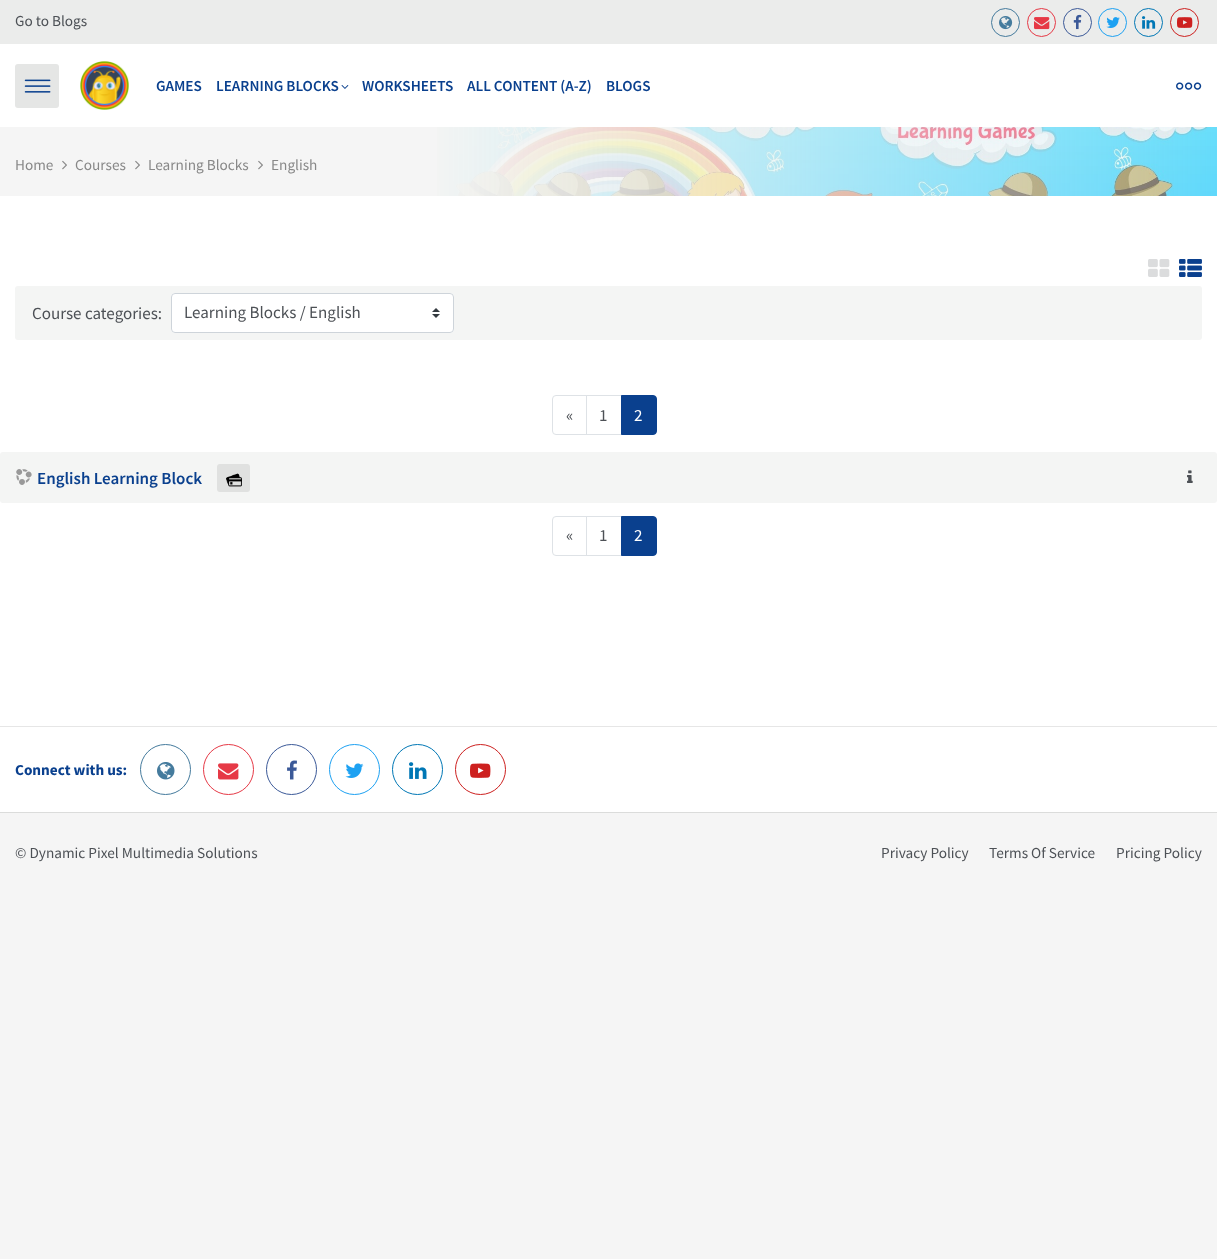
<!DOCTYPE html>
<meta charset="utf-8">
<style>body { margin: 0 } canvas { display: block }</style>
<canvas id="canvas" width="1217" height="1259"></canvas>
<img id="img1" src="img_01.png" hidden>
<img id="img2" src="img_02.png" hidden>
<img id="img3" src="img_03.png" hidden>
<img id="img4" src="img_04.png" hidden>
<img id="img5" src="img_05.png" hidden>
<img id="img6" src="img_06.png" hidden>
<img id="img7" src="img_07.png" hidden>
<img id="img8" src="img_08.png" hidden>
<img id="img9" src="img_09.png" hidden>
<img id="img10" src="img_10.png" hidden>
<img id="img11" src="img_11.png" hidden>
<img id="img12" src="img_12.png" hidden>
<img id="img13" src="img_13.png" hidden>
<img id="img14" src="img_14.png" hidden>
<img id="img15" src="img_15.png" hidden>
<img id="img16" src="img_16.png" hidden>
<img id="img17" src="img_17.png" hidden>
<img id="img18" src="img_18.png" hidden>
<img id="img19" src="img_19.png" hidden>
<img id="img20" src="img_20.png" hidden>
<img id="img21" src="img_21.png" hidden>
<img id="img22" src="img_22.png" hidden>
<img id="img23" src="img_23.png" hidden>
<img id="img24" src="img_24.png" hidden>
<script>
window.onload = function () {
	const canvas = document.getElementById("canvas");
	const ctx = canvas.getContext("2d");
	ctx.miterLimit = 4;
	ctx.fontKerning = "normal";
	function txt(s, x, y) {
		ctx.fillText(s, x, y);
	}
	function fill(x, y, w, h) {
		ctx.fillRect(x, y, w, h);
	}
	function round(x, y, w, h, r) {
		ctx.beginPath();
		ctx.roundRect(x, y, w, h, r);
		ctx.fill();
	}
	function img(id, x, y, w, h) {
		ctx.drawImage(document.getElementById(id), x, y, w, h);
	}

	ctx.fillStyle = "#F5F5F5";
	fill(0, 0, 1217, 1259);
	ctx.fillStyle = "#FFFFFF";
	fill(0, 44, 1217, 83);
	ctx.fillStyle = "#EBECEB";
	fill(0, 0, 1217, 44);
	ctx.beginPath();
	ctx.arc(1005.5, 22.5, 14, 0, Math.PI * 2);
	ctx.strokeStyle = "#457B9D";
	ctx.stroke();
	img("img1", 999, 16, 14, 14);
	ctx.beginPath();
	ctx.arc(1041.5, 22.5, 14, 0, Math.PI * 2);
	ctx.strokeStyle = "#E63946";
	ctx.stroke();
	img("img2", 1034, 17, 16, 13);
	ctx.beginPath();
	ctx.arc(1077.5, 22.5, 14, 0, Math.PI * 2);
	ctx.strokeStyle = "#3B5998";
	ctx.stroke();
	img("img3", 1073, 14, 9, 16);
	ctx.beginPath();
	ctx.arc(1112.5, 22.5, 14, 0, Math.PI * 2);
	ctx.strokeStyle = "#1DA1F2";
	ctx.stroke();
	img("img4", 1106, 17, 14, 11);
	ctx.beginPath();
	ctx.arc(1148.5, 22.5, 14, 0, Math.PI * 2);
	ctx.strokeStyle = "#0077B5";
	ctx.stroke();
	img("img5", 1142, 16, 14, 13);
	ctx.beginPath();
	ctx.arc(1184.5, 22.5, 14, 0, Math.PI * 2);
	ctx.strokeStyle = "#CD201F";
	ctx.stroke();
	img("img6", 1177, 17, 16, 11);
	ctx.fillStyle = "#E5E6E5";
	round(15, 64, 44, 44, 3);
	img("img7", 24, 79, 27, 14);
	img("img8", 80, 61, 49, 49);
	img("img9", 341, 85, 8, 4);
	img("img10", 1176, 82, 26, 8);
	ctx.fillStyle = "#FFFFFF";
	fill(0, 196, 1217, 616);
	img("img11", 62, 160, 5, 10);
	img("img11", 135, 160, 5, 10);
	img("img11", 258, 160, 5, 10);
	img("img12", 437, 127, 780, 69);
	img("img13", 1148, 259, 22, 18);
	img("img14", 1179, 259, 23, 18);
	ctx.fillStyle = "#F4F5F4";
	round(15, 286, 1187, 54, 3);
	ctx.fillStyle = "#FFFFFF";
	round(171, 293, 283, 40, 4);
	img("img15", 432, 308, 8, 10);
	ctx.beginPath();
	ctx.roundRect(171.5, 293.5, 282, 39, 3.5);
	ctx.strokeStyle = "#CED4DA";
	ctx.stroke();
	ctx.beginPath();
	ctx.roundRect(552.5, 395.5, 34, 39, [3.5, 0, 0, 3.5]);
	ctx.strokeStyle = "#DEE2E6";
	ctx.stroke();
	ctx.strokeRect(586.5, 395.5, 35, 39);
	ctx.fillStyle = "#0A408E";
	ctx.beginPath();
	ctx.roundRect(621.5, 395.5, 35, 39, [0, 3.5, 3.5, 0]);
	ctx.fill();
	ctx.strokeStyle = "#0A408E";
	ctx.stroke();
	ctx.fillStyle = "#F4F5F4";
	ctx.beginPath();
	ctx.roundRect(1.5, 453.5, 1214, 48, 1.5);
	ctx.fill();
	ctx.strokeStyle = "#F4F5F4";
	ctx.lineWidth = 3;
	ctx.stroke();
	img("img16", 16, 469, 16, 16);
	ctx.fillStyle = "#E0E1E0";
	round(217, 464, 33, 28, 3);
	img("img17", 226, 473, 16, 14);
	img("img18", 1187, 470, 6, 13);
	ctx.beginPath();
	ctx.roundRect(552.5, 516.5, 34, 39, [3.5, 0, 0, 3.5]);
	ctx.strokeStyle = "#DEE2E6";
	ctx.lineWidth = 1;
	ctx.stroke();
	ctx.strokeRect(586.5, 516.5, 35, 39);
	ctx.fillStyle = "#0A408E";
	ctx.beginPath();
	ctx.roundRect(621.5, 516.5, 35, 39, [0, 3.5, 3.5, 0]);
	ctx.fill();
	ctx.strokeStyle = "#0A408E";
	ctx.stroke();
	ctx.fillStyle = "#E6E6E6";
	fill(0, 726, 1217, 1);
	ctx.beginPath();
	ctx.arc(165.5, 769.5, 25, 0, Math.PI * 2);
	ctx.strokeStyle = "#457B9D";
	ctx.stroke();
	img("img19", 157, 762, 18, 18);
	ctx.beginPath();
	ctx.arc(228.5, 769.5, 25, 0, Math.PI * 2);
	ctx.strokeStyle = "#E63946";
	ctx.stroke();
	img("img20", 218, 763, 21, 17);
	ctx.beginPath();
	ctx.arc(291.5, 769.5, 25, 0, Math.PI * 2);
	ctx.strokeStyle = "#3B5998";
	ctx.stroke();
	img("img21", 287, 760, 10, 20);
	ctx.beginPath();
	ctx.arc(354.5, 769.5, 25, 0, Math.PI * 2);
	ctx.strokeStyle = "#1DA1F2";
	ctx.stroke();
	img("img22", 345, 763, 19, 15);
	ctx.beginPath();
	ctx.arc(417.5, 769.5, 25, 0, Math.PI * 2);
	ctx.strokeStyle = "#0077B5";
	ctx.stroke();
	img("img23", 409, 762, 18, 17);
	ctx.beginPath();
	ctx.arc(480.5, 769.5, 25, 0, Math.PI * 2);
	ctx.strokeStyle = "#CD201F";
	ctx.stroke();
	img("img24", 470, 763, 21, 15);
	ctx.fillStyle = "#DBDCDB";
	fill(0, 812, 1217, 1);
	ctx.font = "15.25px Source Sans Pro";
	ctx.fillStyle = "#4D5156";
	txt("Go to Blogs", 15, 26);
	ctx.font = "600 15.25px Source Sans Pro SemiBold";
	ctx.fillStyle = "#0A408E";
	txt("GAMES", 156, 91);
	txt("LEARNING BLOCKS", 216, 91);
	txt("WORKSHEETS", 362, 91);
	txt("ALL CONTENT (A-Z)", 467, 91);
	txt("BLOGS", 606, 91);
	ctx.font = "15.25px Source Sans Pro";
	ctx.fillStyle = "#888888";
	txt("Home", 15, 170);
	txt("Courses", 75, 170);
	txt("Learning Blocks", 148, 170);
	txt("English", 271, 170);
	ctx.font = "17px Source Sans Pro";
	ctx.fillStyle = "#4D5156";
	txt("Course categories:", 32, 319);
	txt("Learning Blocks / English", 184, 318);
	txt("«", 566, 421);
	txt("1", 599, 421);
	ctx.fillStyle = "#FFFFFF";
	txt("2", 634, 421);
	ctx.font = "600 17px Source Sans Pro SemiBold";
	ctx.fillStyle = "#0A408E";
	txt("English Learning Block", 37, 484);
	ctx.font = "17px Source Sans Pro";
	ctx.fillStyle = "#4D5156";
	txt("«", 566, 541);
	txt("1", 599, 541);
	ctx.fillStyle = "#FFFFFF";
	txt("2", 634, 541);
	ctx.font = "bold 15.25px Source Sans Pro";
	ctx.fillStyle = "#0A408E";
	txt("Connect with us:", 15, 775);
	ctx.font = "15.25px Source Sans Pro";
	ctx.fillStyle = "#4D5156";
	txt("© Dynamic Pixel Multimedia Solutions", 15, 858);
	txt("Privacy Policy", 881, 858);
	txt("Terms Of Service", 989, 858);
	txt("Pricing Policy", 1116, 858);
};
</script>
